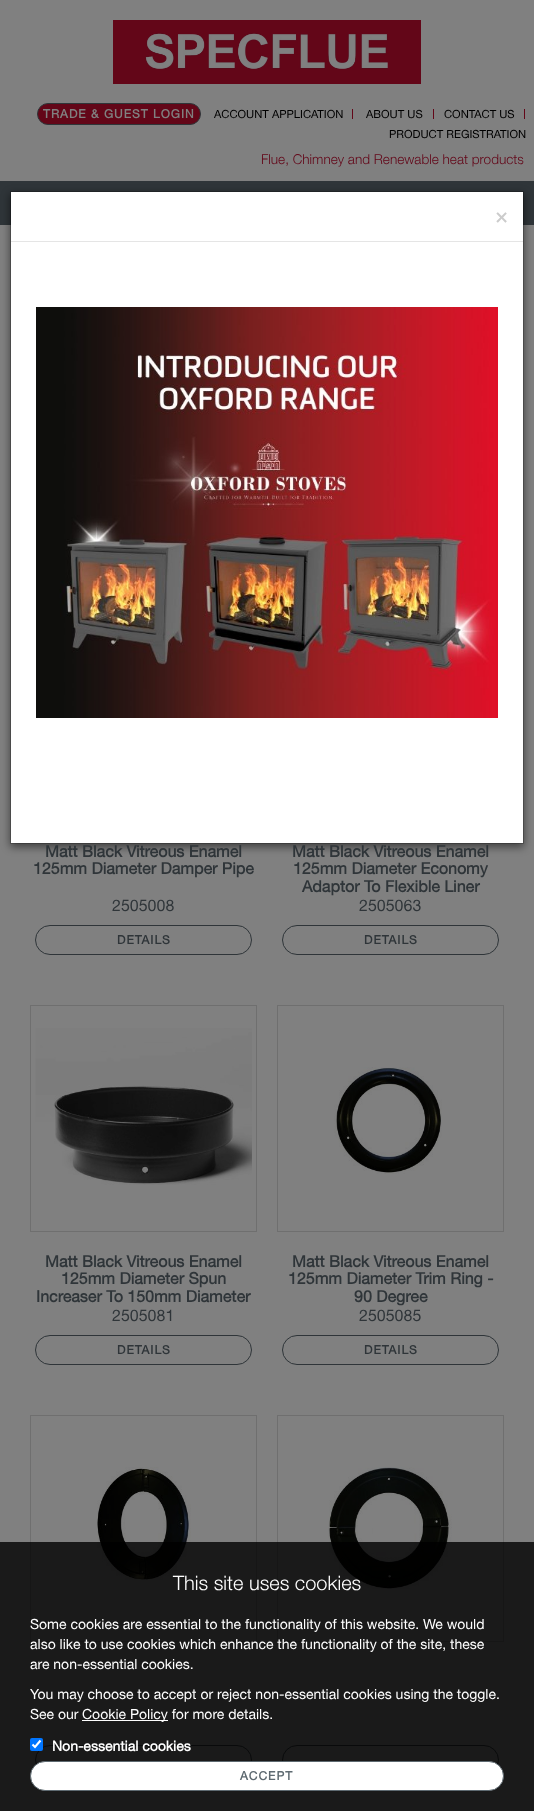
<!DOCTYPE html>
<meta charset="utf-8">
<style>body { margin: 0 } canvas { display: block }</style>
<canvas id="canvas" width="534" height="1811"></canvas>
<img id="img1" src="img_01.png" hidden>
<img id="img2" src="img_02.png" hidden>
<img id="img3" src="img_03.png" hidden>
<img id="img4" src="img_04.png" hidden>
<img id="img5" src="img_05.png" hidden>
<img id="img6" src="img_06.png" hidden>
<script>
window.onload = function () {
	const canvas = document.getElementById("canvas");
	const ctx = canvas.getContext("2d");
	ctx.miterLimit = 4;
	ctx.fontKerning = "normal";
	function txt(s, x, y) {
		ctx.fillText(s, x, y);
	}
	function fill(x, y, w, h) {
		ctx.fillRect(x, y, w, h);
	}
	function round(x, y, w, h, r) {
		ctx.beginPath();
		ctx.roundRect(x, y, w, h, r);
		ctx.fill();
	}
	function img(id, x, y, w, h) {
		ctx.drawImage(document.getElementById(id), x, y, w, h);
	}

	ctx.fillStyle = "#2F3539";
	fill(0, 0, 534, 1811);
	ctx.fillStyle = "#808080";
	fill(0, 0, 534, 181);
	img("img1", 113, 20, 308, 64);
	ctx.fillStyle = "#630618";
	ctx.beginPath();
	ctx.roundRect(37.5, 103.5, 163, 21, 10.5);
	ctx.fill();
	ctx.strokeStyle = "#2F3539";
	ctx.stroke();
	fill(352, 109, 1, 10);
	fill(433, 109, 1, 10);
	fill(524, 109, 1, 10);
	ctx.fillStyle = "#808080";
	fill(0, 225, 534, 1586);
	ctx.fillStyle = "rgba(0, 0, 0, 0.5)";
	ctx.filter = "blur(4.5px)";
	ctx.beginPath();
	ctx.rect(10, 194, 514, 653);
	ctx.fill();
	ctx.filter = "none";
	ctx.fillStyle = "#FFFFFF";
	fill(11, 192, 512, 651);
	ctx.strokeStyle = "rgba(0, 0, 0, 0.2)";
	ctx.strokeRect(10.5, 191.5, 513, 652);
	ctx.fillStyle = "#E5E5E5";
	fill(11, 241, 512, 1);
	img("img2", 36, 307, 462, 411);
	ctx.beginPath();
	ctx.roundRect(35.5, 925.5, 216, 29, 14.5);
	ctx.strokeStyle = "#2F3539";
	ctx.stroke();
	ctx.beginPath();
	ctx.roundRect(282.5, 925.5, 216, 29, 14.5);
	ctx.stroke();
	ctx.strokeStyle = "#6F6F6F";
	ctx.strokeRect(30.5, 1005.5, 226, 226);
	img("img3", 35, 1028, 217, 157);
	ctx.beginPath();
	ctx.roundRect(35.5, 1335.5, 216, 29, 14.5);
	ctx.strokeStyle = "#2F3539";
	ctx.stroke();
	ctx.strokeStyle = "#6F6F6F";
	ctx.strokeRect(277.5, 1005.5, 226, 226);
	img("img4", 334, 1067, 108, 107);
	ctx.beginPath();
	ctx.roundRect(282.5, 1335.5, 216, 29, 14.5);
	ctx.strokeStyle = "#2F3539";
	ctx.stroke();
	ctx.strokeStyle = "#6F6F6F";
	ctx.strokeRect(30.5, 1415.5, 226, 226);
	img("img5", 97, 1467, 94, 113);
	ctx.beginPath();
	ctx.roundRect(35.5, 1745.5, 216, 29, 14.5);
	ctx.strokeStyle = "#2F3539";
	ctx.stroke();
	ctx.strokeStyle = "#6F6F6F";
	ctx.strokeRect(277.5, 1415.5, 226, 226);
	img("img6", 328, 1467, 124, 122);
	ctx.beginPath();
	ctx.roundRect(282.5, 1745.5, 216, 29, 14.5);
	ctx.strokeStyle = "#2F3539";
	ctx.stroke();
	ctx.fillStyle = "rgba(0, 0, 0, 0.8)";
	fill(0, 1542, 534, 269);
	ctx.fillStyle = "#FFFFFF";
	fill(82, 1720, 86, 1);
	ctx.fillStyle = "#0075FF";
	round(30, 1738, 13, 13, 2);
	ctx.beginPath();
	ctx.moveTo(32.5, 1744.5);
	ctx.lineTo(35, 1747);
	ctx.lineTo(40.5, 1740.5);
	ctx.strokeStyle = "#FFFFFF";
	ctx.lineWidth = 2.1;
	ctx.stroke();
	ctx.fillStyle = "#FFFFFF";
	ctx.beginPath();
	ctx.roundRect(30.5, 1761.5, 473, 29, 14.5);
	ctx.fill();
	ctx.strokeStyle = "#5E6A71";
	ctx.lineWidth = 1;
	ctx.stroke();
	ctx.letterSpacing = "1px";
	ctx.font = "bold 12px 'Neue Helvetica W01'";
	ctx.fillStyle = "#808080";
	txt("TRADE & GUEST LOGIN", 43, 118);
	ctx.letterSpacing = "0px";
	ctx.font = "11.25px 'Neue Helvetica W01'";
	ctx.fillStyle = "#000000";
	txt("ACCOUNT APPLICATION", 214, 118);
	txt("ABOUT US", 366, 118);
	txt("CONTACT US", 444, 118);
	txt("PRODUCT REGISTRATION", 389, 138);
	ctx.font = "300 13.6px 'Neue Helvetica W01'";
	ctx.fillStyle = "#630618";
	txt("Flue, Chimney and Renewable heat products", 261, 164);
	ctx.font = "bold 21px 'Neue Helvetica W01'";
	ctx.fillStyle = "#CCCCCC";
	txt("×", 495, 223);
	ctx.font = "bold 16px 'Neue Helvetica W01'";
	ctx.fillStyle = "#2F3539";
	txt("Matt Black Vitreous Enamel", 45, 857);
	txt("125mm Diameter Damper Pipe", 33, 874);
	ctx.font = "16px 'Neue Helvetica W01'";
	txt("2505008", 112, 911);
	ctx.letterSpacing = "1px";
	ctx.font = "bold 12px 'Neue Helvetica W01'";
	txt("DETAILS", 117, 944);
	ctx.letterSpacing = "0px";
	ctx.font = "bold 16px 'Neue Helvetica W01'";
	txt("Matt Black Vitreous Enamel", 292, 857);
	txt("125mm Diameter Economy", 293, 874);
	txt("Adaptor To Flexible Liner", 302, 892);
	ctx.font = "16px 'Neue Helvetica W01'";
	txt("2505063", 359, 911);
	ctx.letterSpacing = "1px";
	ctx.font = "bold 12px 'Neue Helvetica W01'";
	txt("DETAILS", 364, 944);
	ctx.letterSpacing = "0px";
	ctx.font = "bold 16px 'Neue Helvetica W01'";
	txt("Matt Black Vitreous Enamel", 45, 1267);
	txt("125mm Diameter Spun", 61, 1284);
	txt("Increaser To 150mm Diameter", 36, 1302);
	ctx.font = "16px 'Neue Helvetica W01'";
	txt("2505081", 112, 1321);
	ctx.letterSpacing = "1px";
	ctx.font = "bold 12px 'Neue Helvetica W01'";
	txt("DETAILS", 117, 1354);
	ctx.letterSpacing = "0px";
	ctx.font = "bold 16px 'Neue Helvetica W01'";
	txt("Matt Black Vitreous Enamel", 292, 1267);
	txt("125mm Diameter Trim Ring -", 288, 1284);
	txt("90 Degree", 354, 1302);
	ctx.font = "16px 'Neue Helvetica W01'";
	txt("2505085", 359, 1321);
	ctx.letterSpacing = "1px";
	ctx.font = "bold 12px 'Neue Helvetica W01'";
	txt("DETAILS", 364, 1354);
	ctx.letterSpacing = "0px";
	ctx.font = "300 20px 'Neue Helvetica W01'";
	ctx.fillStyle = "#FFFFFF";
	txt("This site uses cookies", 173, 1590);
	ctx.font = "14px 'Neue Helvetica W01'";
	txt("Some cookies are essential to the functionality of this website. We would", 30, 1629);
	txt("also like to use cookies which enhance the functionality of the site, these", 30, 1649);
	txt("are non-essential cookies.", 30, 1669);
	txt("You may choose to accept or reject non-essential cookies using the toggle.", 30, 1699);
	txt("See our", 30, 1719);
	txt("Cookie Policy for more details.", 82, 1719);
	ctx.font = "bold 14px 'Neue Helvetica W01'";
	txt("Non-essential cookies", 52, 1751);
	ctx.letterSpacing = "1px";
	ctx.font = "bold 12px 'Neue Helvetica W01'";
	ctx.fillStyle = "#5E6A71";
	txt("ACCEPT", 240, 1780);
};
</script>
